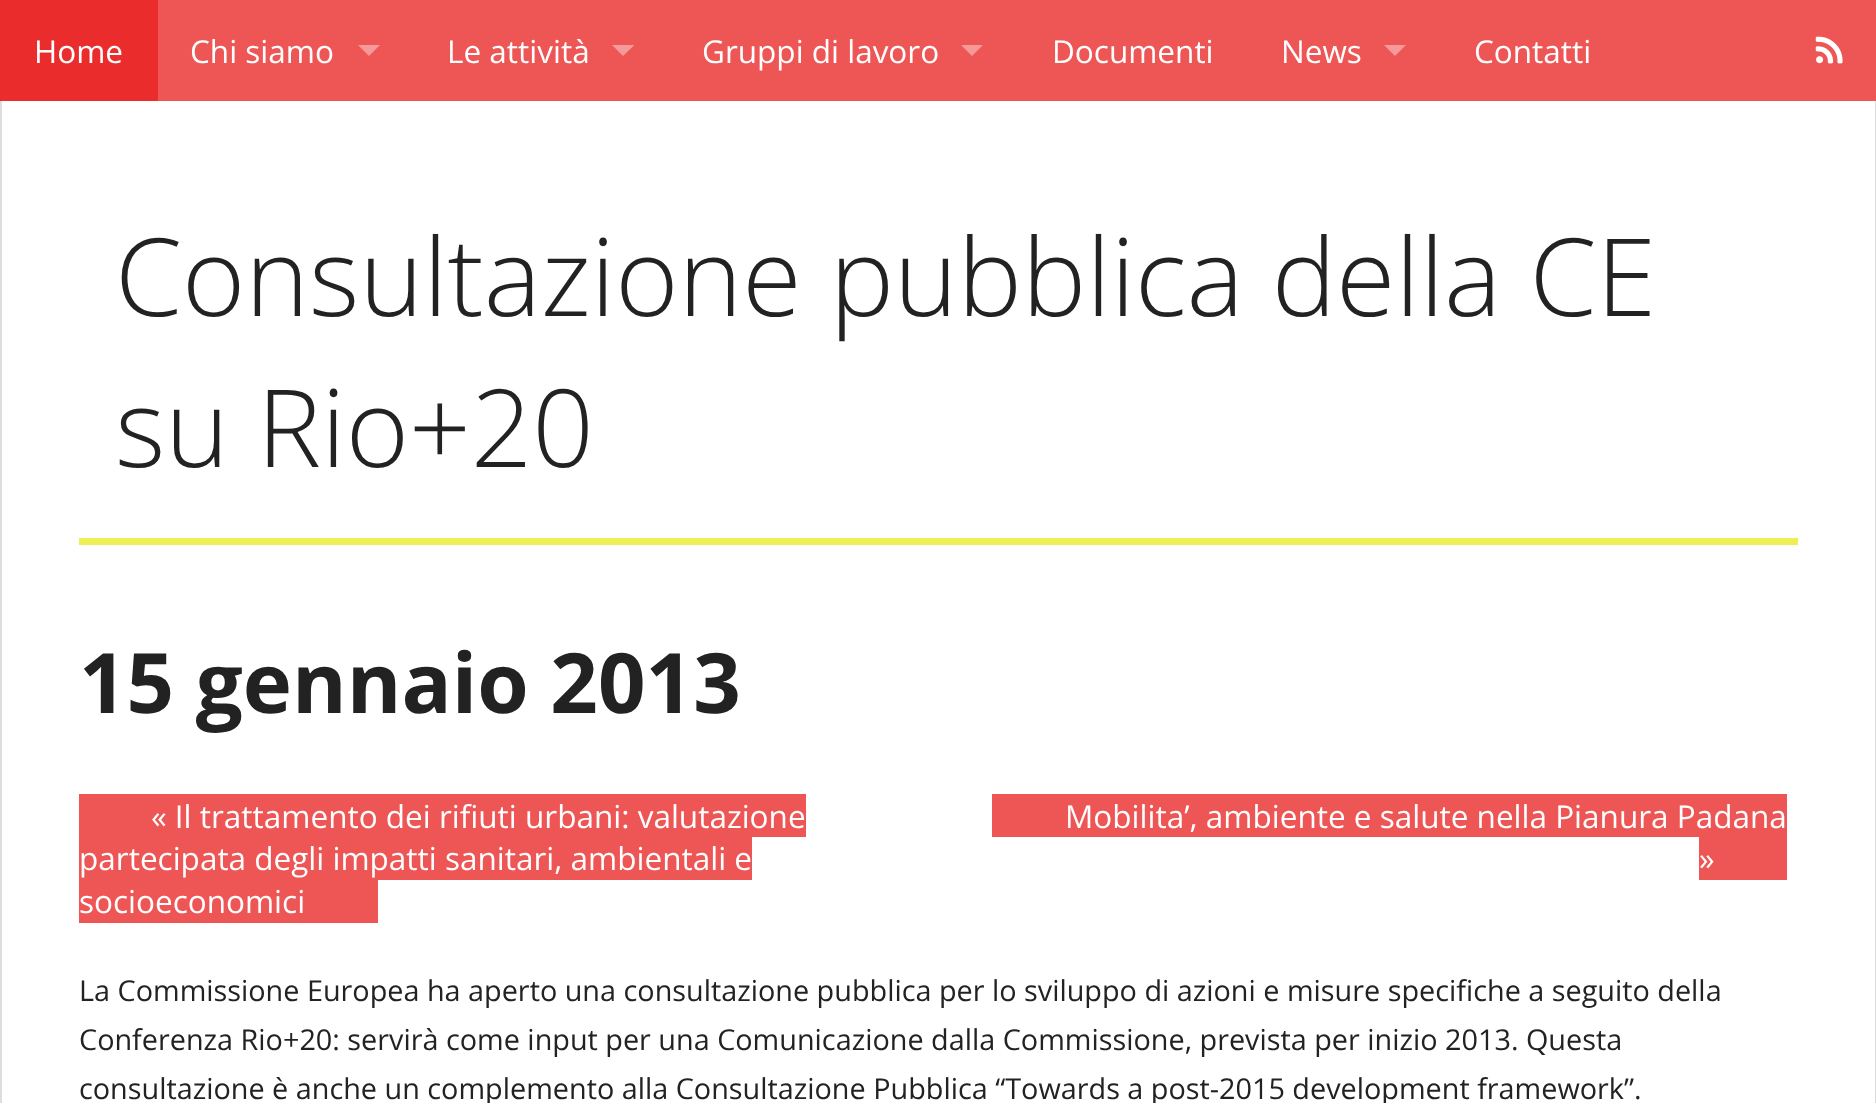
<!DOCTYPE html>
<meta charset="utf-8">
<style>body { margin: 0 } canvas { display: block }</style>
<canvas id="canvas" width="1876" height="1103"></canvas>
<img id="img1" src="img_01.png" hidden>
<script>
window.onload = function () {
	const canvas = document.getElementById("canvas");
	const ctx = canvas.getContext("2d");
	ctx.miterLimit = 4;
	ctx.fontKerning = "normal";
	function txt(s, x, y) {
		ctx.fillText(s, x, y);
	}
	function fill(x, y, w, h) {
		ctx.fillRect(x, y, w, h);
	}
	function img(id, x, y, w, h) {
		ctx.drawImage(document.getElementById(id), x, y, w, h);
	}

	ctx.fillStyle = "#FFFFFF";
	fill(0, 0, 1876, 1103);
	ctx.strokeStyle = "#DDDDDD";
	ctx.lineWidth = 2;
	ctx.strokeRect(1, -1, 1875, 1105);
	ctx.fillStyle = "#EE5555";
	fill(158, 0, 1718, 101);
	ctx.fillStyle = "#EA2C2C";
	fill(0, 0, 158, 101);
	ctx.fillStyle = "#F59999";
	ctx.beginPath();
	ctx.moveTo(358, 45);
	ctx.lineTo(380, 45);
	ctx.lineTo(369, 56);
	ctx.closePath();
	ctx.fill();
	ctx.beginPath();
	ctx.moveTo(612, 45);
	ctx.lineTo(634.5, 45);
	ctx.lineTo(623, 56);
	ctx.closePath();
	ctx.fill();
	ctx.beginPath();
	ctx.moveTo(961, 45);
	ctx.lineTo(983, 45);
	ctx.lineTo(972, 56);
	ctx.closePath();
	ctx.fill();
	ctx.beginPath();
	ctx.moveTo(1384, 45);
	ctx.lineTo(1406, 45);
	ctx.lineTo(1395, 56);
	ctx.closePath();
	ctx.fill();
	img("img1", 1815, 36, 28, 28);
	ctx.fillStyle = "#EEEE55";
	fill(79, 538, 1719, 7);
	ctx.fillStyle = "#EE5555";
	fill(79, 794, 727, 43);
	fill(79, 837, 673, 43);
	fill(79, 880, 299, 43);
	fill(992, 794, 795, 43);
	fill(1699, 837, 88, 43);
	ctx.font = "31.5px Open Sans";
	ctx.fillStyle = "#FFFFFF";
	txt("Home", 34, 63);
	txt("Chi siamo", 190, 63);
	txt("Le attività", 447, 63);
	txt("Gruppi di lavoro", 702, 63);
	txt("Documenti", 1052, 63);
	txt("News", 1281, 63);
	txt("Contatti", 1474, 63);
	ctx.font = "300 108px Open Sans";
	ctx.fillStyle = "#222222";
	txt("Consultazione pubblica della CE", 115, 316);
	txt("su Rio+20", 115, 467);
	ctx.font = "bold 83.25px Open Sans";
	txt("15 gennaio 2013", 79, 713);
	ctx.font = "31.5px Open Sans";
	ctx.fillStyle = "#FFFFFF";
	txt("« Il trattamento dei rifiuti urbani: valutazione", 151, 828);
	txt("partecipata degli impatti sanitari, ambientali e", 79, 870);
	txt("socioeconomici", 79, 913);
	txt("Mobilita’, ambiente e salute nella Pianura Padana", 1065, 828);
	txt("»", 1699, 870);
	ctx.font = "28.8px Open Sans";
	ctx.fillStyle = "#222222";
	txt("La Commissione Europea ha aperto una consultazione pubblica per lo sviluppo di azioni e misure specifiche a seguito della", 79, 1001);
	txt("Conferenza Rio+20: servirà come input per una Comunicazione dalla Commissione, prevista per inizio 2013. Questa", 79, 1050);
	txt("consultazione è anche un complemento alla Consultazione Pubblica “Towards a post-2015 development framework”.", 79, 1099);
};
</script>
